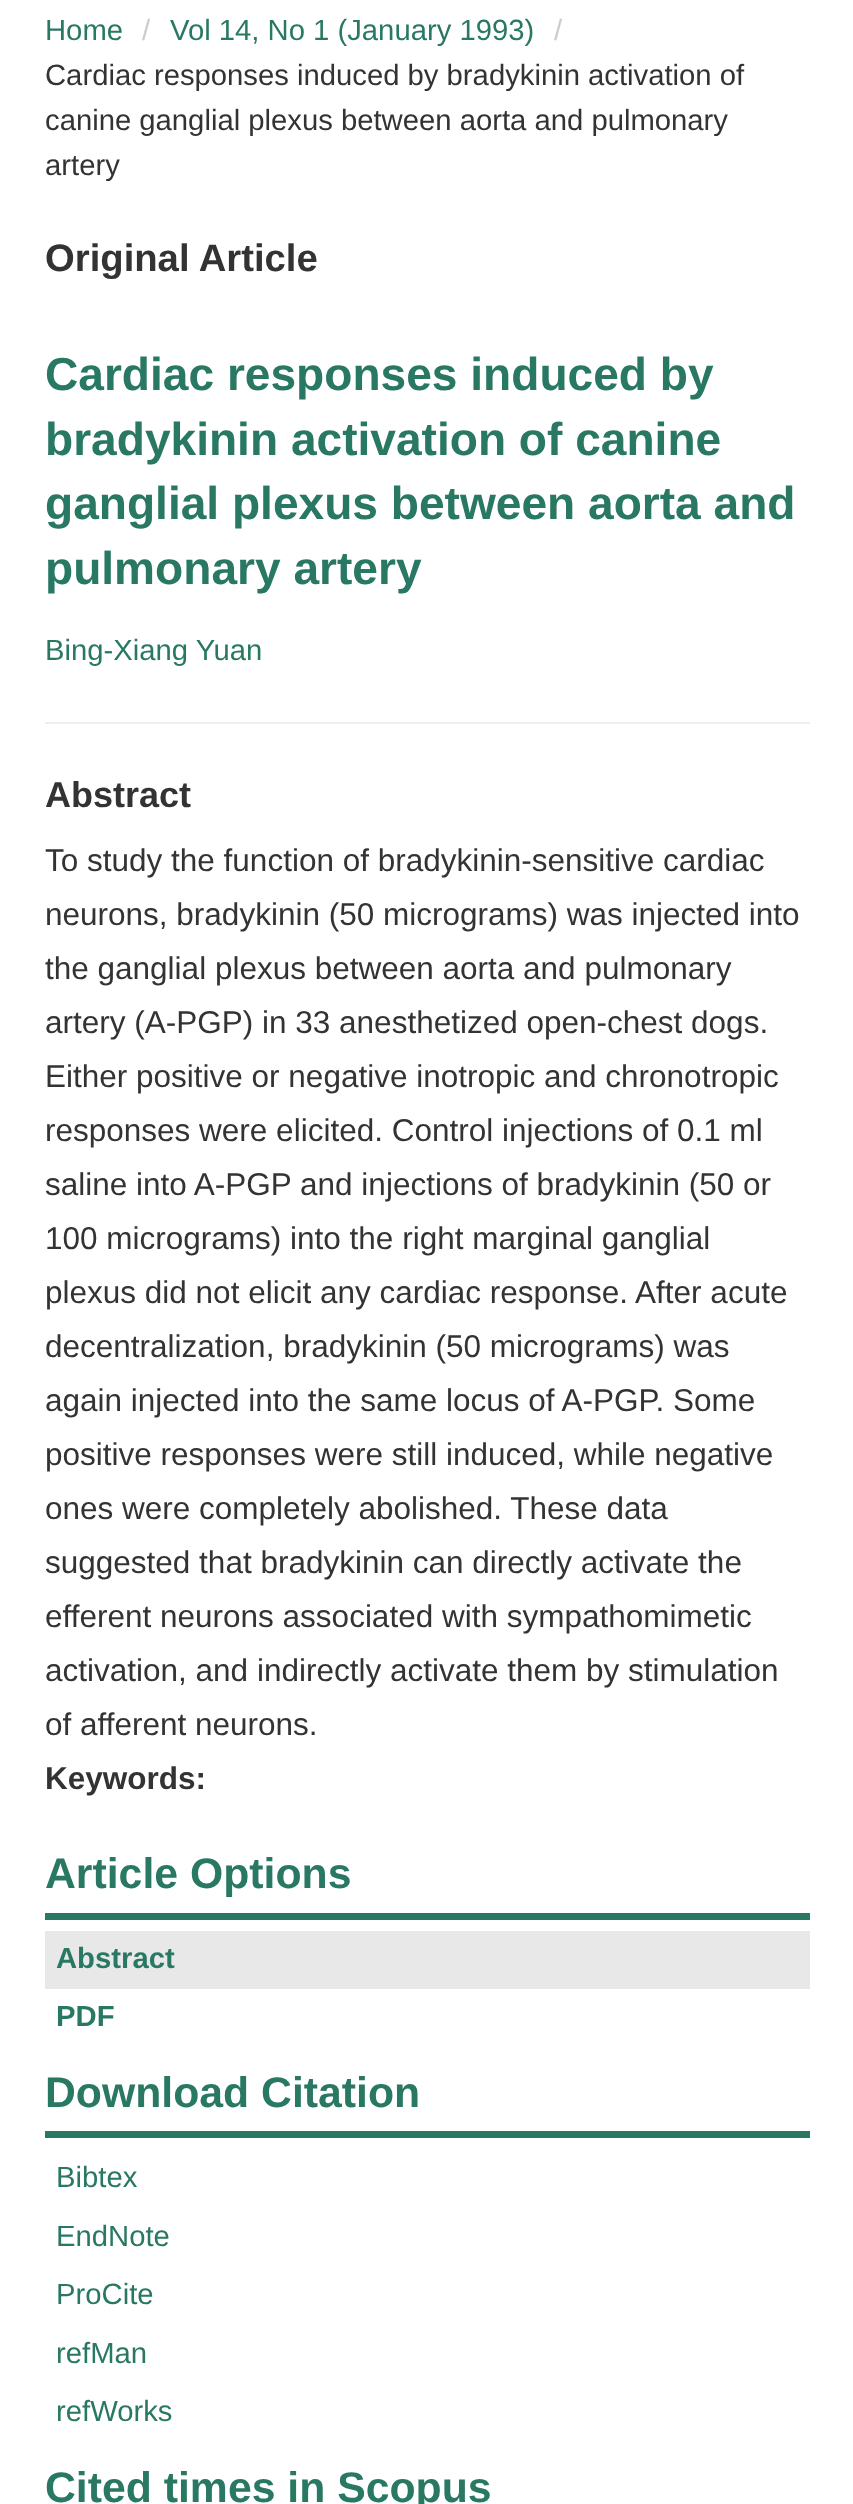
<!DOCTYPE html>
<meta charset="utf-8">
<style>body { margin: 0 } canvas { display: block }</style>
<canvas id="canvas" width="853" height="2504"></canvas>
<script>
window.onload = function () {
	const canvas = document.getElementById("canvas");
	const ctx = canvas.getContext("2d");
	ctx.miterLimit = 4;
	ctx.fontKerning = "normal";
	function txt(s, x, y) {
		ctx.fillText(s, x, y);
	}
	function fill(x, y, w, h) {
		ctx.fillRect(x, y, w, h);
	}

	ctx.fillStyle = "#FFFFFF";
	fill(0, 0, 853, 2504);
	ctx.fillStyle = "#EEEEEE";
	fill(45, 722, 765, 2);
	ctx.fillStyle = "#297863";
	fill(45, 1913, 765, 7);
	ctx.fillStyle = "#E8E8E8";
	fill(45, 1931, 765, 58);
	ctx.fillStyle = "#297863";
	fill(45, 2131, 765, 7);
	ctx.font = "29.25px Liberation Sans";
	txt("Home", 45, 40);
	ctx.fillStyle = "#CCCCCC";
	txt("/", 142, 40);
	ctx.fillStyle = "#297863";
	txt("Vol 14, No 1 (January 1993)", 170, 40);
	ctx.fillStyle = "#CCCCCC";
	txt("/", 554, 40);
	ctx.fillStyle = "#333333";
	txt("Cardiac responses induced by bradykinin activation of", 45, 85);
	txt("canine ganglial plexus between aorta and pulmonary", 45, 130);
	txt("artery", 45, 175);
	ctx.font = "bold 38.25px Liberation Sans";
	txt("Original Article", 45, 271);
	ctx.font = "bold 46.1px Liberation Sans";
	ctx.fillStyle = "#297863";
	txt("Cardiac responses induced by", 45, 390);
	txt("bradykinin activation of canine", 45, 455);
	txt("ganglial plexus between aorta and", 45, 519);
	txt("pulmonary artery", 45, 584);
	ctx.font = "29.25px Liberation Sans";
	txt("Bing-Xiang Yuan", 45, 660);
	ctx.font = "bold 36px Liberation Sans";
	ctx.fillStyle = "#333333";
	txt("Abstract", 45, 807);
	ctx.font = "31.5px Liberation Sans";
	txt("To study the function of bradykinin-sensitive cardiac", 45, 871);
	txt("neurons, bradykinin (50 micrograms) was injected into", 45, 925);
	txt("the ganglial plexus between aorta and pulmonary", 45, 979);
	txt("artery (A-PGP) in 33 anesthetized open-chest dogs.", 45, 1033);
	txt("Either positive or negative inotropic and chronotropic", 45, 1087);
	txt("responses were elicited. Control injections of 0.1 ml", 45, 1141);
	txt("saline into A-PGP and injections of bradykinin (50 or", 45, 1195);
	txt("100 micrograms) into the right marginal ganglial", 45, 1249);
	txt("plexus did not elicit any cardiac response. After acute", 45, 1303);
	txt("decentralization, bradykinin (50 micrograms) was", 45, 1357);
	txt("again injected into the same locus of A-PGP. Some", 45, 1411);
	txt("positive responses were still induced, while negative", 45, 1465);
	txt("ones were completely abolished. These data", 45, 1519);
	txt("suggested that bradykinin can directly activate the", 45, 1573);
	txt("efferent neurons associated with sympathomimetic", 45, 1627);
	txt("activation, and indirectly activate them by stimulation", 45, 1681);
	txt("of afferent neurons.", 45, 1735);
	ctx.font = "bold 31.5px Liberation Sans";
	txt("Keywords:", 45, 1789);
	ctx.font = "bold 42.75px Liberation Sans";
	ctx.fillStyle = "#297863";
	txt("Article Options", 45, 1888);
	ctx.font = "bold 29.25px Liberation Sans";
	txt("Abstract", 56, 1968);
	txt("PDF", 56, 2026);
	ctx.font = "bold 42.75px Liberation Sans";
	txt("Download Citation", 45, 2107);
	ctx.font = "29.25px Liberation Sans";
	txt("Bibtex", 56, 2187);
	txt("EndNote", 56, 2246);
	txt("ProCite", 56, 2304);
	txt("refMan", 56, 2363);
	txt("refWorks", 56, 2421);
	ctx.font = "bold 42.75px Liberation Sans";
	txt("Cited times in Scopus", 45, 2502);
};
</script>
